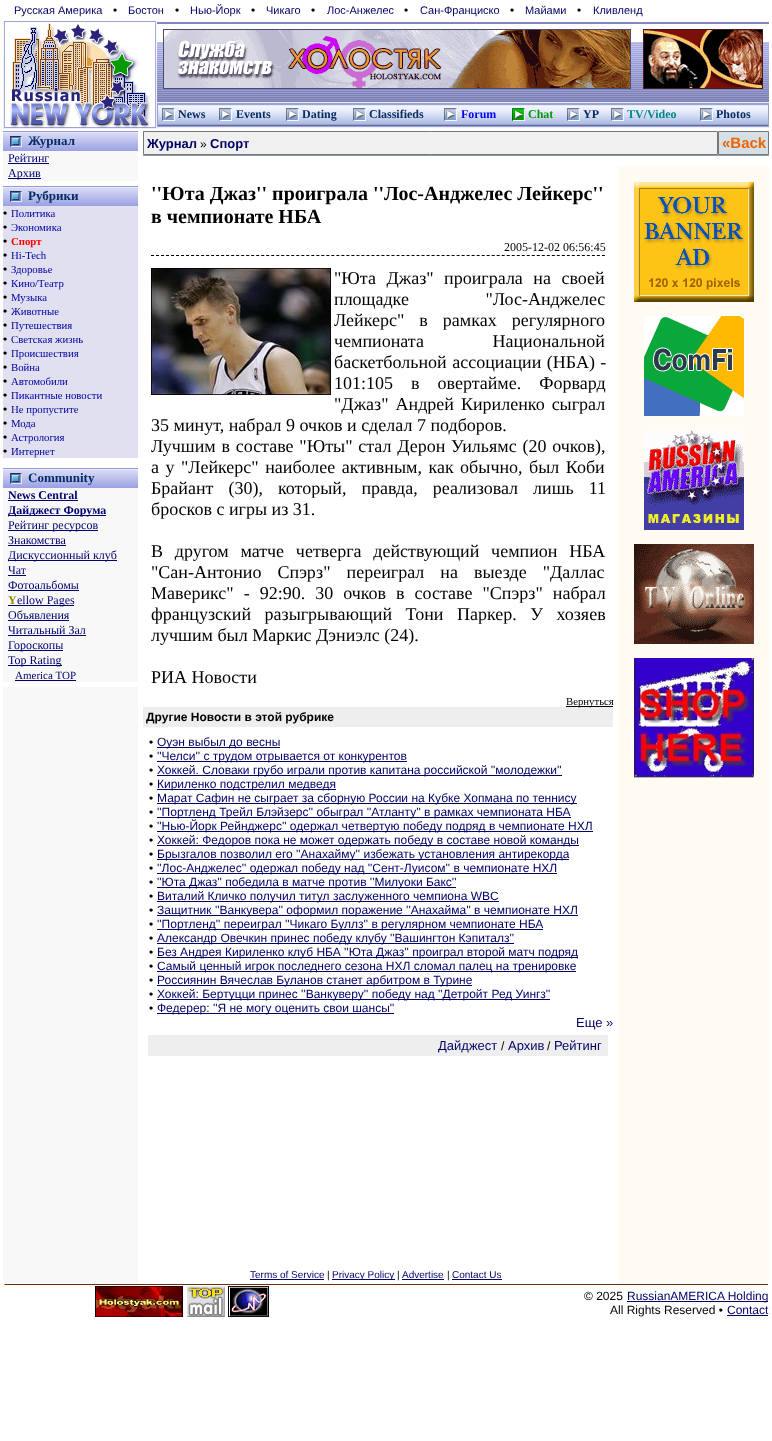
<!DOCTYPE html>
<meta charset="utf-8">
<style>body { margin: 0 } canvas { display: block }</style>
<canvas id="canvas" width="772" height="1441"></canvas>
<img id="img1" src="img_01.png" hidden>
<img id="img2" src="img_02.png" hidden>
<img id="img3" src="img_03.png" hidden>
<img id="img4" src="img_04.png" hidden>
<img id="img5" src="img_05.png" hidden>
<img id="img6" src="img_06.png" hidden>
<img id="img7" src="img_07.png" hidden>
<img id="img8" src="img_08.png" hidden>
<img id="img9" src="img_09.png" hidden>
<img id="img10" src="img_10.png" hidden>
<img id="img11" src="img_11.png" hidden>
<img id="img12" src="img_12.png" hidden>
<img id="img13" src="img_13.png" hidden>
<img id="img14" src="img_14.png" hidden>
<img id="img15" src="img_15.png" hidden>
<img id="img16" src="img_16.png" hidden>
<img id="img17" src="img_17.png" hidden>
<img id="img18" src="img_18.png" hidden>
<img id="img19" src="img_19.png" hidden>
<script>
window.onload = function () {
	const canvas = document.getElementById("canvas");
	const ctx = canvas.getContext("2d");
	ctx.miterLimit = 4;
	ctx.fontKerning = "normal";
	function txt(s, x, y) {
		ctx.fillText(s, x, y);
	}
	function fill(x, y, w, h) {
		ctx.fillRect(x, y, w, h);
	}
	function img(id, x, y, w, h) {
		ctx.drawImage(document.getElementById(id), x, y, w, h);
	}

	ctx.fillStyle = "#FFFFFF";
	fill(0, 0, 772, 1441);
	img("img1", 157, 42, 612, 60);
	img("img2", 3, 21, 154, 108);
	ctx.fillStyle = "#8486C4";
	fill(157, 22, 612, 2);
	img("img3", 163, 29, 468, 60);
	img("img4", 643, 29, 120, 60);
	img("img5", 157, 102, 612, 26);
	ctx.fillStyle = "#9BA0D2";
	fill(157, 103, 1, 24);
	img("img6", 162, 108, 13, 13);
	img("img6", 219, 108, 13, 13);
	img("img6", 286, 108, 13, 13);
	img("img6", 353, 108, 13, 13);
	img("img6", 444, 108, 13, 13);
	img("img7", 512, 108, 13, 13);
	img("img6", 567, 108, 13, 13);
	img("img6", 611, 108, 13, 13);
	img("img6", 700, 108, 13, 13);
	fill(768, 103, 1, 24);
	ctx.fillStyle = "#F8F8F8";
	fill(3, 151, 135, 1132);
	img("img8", 3, 131, 25, 20);
	img("img9", 10, 136, 12, 11);
	img("img10", 28, 131, 110, 20);
	ctx.fillStyle = "#000070";
	fill(8, 163, 41, 1);
	fill(8, 178, 33, 1);
	ctx.fillStyle = "#FFFFFF";
	fill(3, 181, 135, 5);
	img("img8", 3, 186, 25, 20);
	img("img9", 10, 191, 12, 11);
	img("img10", 28, 186, 110, 20);
	ctx.fillStyle = "#E0E0F0";
	fill(3, 206, 135, 252);
	ctx.fillStyle = "#FFFFFF";
	fill(3, 458, 135, 10);
	img("img8", 3, 468, 25, 20);
	img("img9", 10, 473, 12, 11);
	img("img10", 28, 468, 110, 20);
	ctx.fillStyle = "#000070";
	fill(8, 500, 70, 1);
	fill(8, 515, 98, 1);
	fill(8, 530, 90, 1);
	fill(8, 545, 58, 1);
	fill(8, 560, 109, 1);
	fill(8, 575, 18, 1);
	fill(8, 590, 71, 1);
	fill(8, 605, 66, 1);
	fill(8, 620, 61, 1);
	fill(8, 635, 78, 1);
	fill(8, 650, 55, 1);
	fill(8, 665, 54, 1);
	fill(15, 680, 61, 1);
	ctx.fillStyle = "#FFFFFF";
	fill(3, 682, 135, 5);
	ctx.fillStyle = "#889DAA";
	fill(143, 155, 626, 1);
	ctx.fillStyle = "#F0F0F0";
	ctx.beginPath();
	ctx.rect(143.5, 131.5, 574, 23);
	ctx.fill();
	ctx.strokeStyle = "#777777";
	ctx.stroke();
	ctx.fillStyle = "#D6DEE6";
	ctx.beginPath();
	ctx.rect(718.5, 131.5, 50, 23);
	ctx.fill();
	ctx.stroke();
	ctx.beginPath();
	ctx.moveTo(151, 255.5);
	ctx.lineTo(605, 255.5);
	ctx.strokeStyle = "#000000";
	ctx.setLineDash([3, 2.01]);
	ctx.stroke();
	img("img11", 151, 268, 180, 127);
	ctx.fillStyle = "#000000";
	fill(566, 706, 47, 1);
	ctx.fillStyle = "#EEEEEE";
	fill(143, 707, 470, 20);
	ctx.fillStyle = "#000066";
	fill(157, 747, 123, 1);
	fill(157, 761, 250, 1);
	fill(157, 775, 405, 1);
	fill(157, 789, 179, 1);
	fill(157, 803, 420, 1);
	fill(157, 817, 414, 1);
	fill(157, 831, 436, 1);
	fill(157, 845, 422, 1);
	fill(157, 859, 412, 1);
	fill(157, 873, 400, 1);
	fill(157, 887, 299, 1);
	fill(157, 901, 342, 1);
	fill(157, 915, 421, 1);
	fill(157, 929, 386, 1);
	fill(157, 943, 357, 1);
	fill(157, 957, 421, 1);
	fill(157, 971, 419, 1);
	fill(157, 985, 315, 1);
	fill(157, 999, 393, 1);
	fill(157, 1013, 237, 1);
	ctx.fillStyle = "#EEEEEE";
	fill(148, 1035, 460, 21);
	ctx.fillStyle = "#FFFAF2";
	fill(618, 166, 151, 1117);
	img("img12", 634, 182, 120, 120);
	img("img13", 644, 316, 100, 100);
	img("img14", 644, 430, 100, 100);
	img("img15", 634, 544, 120, 100);
	img("img16", 634, 658, 120, 120);
	ctx.fillStyle = "#000066";
	fill(250, 1279, 74, 1);
	fill(332, 1279, 63, 1);
	fill(402, 1279, 42, 1);
	fill(452, 1279, 50, 1);
	ctx.fillStyle = "#663300";
	fill(4, 1284, 764, 1);
	ctx.fillStyle = "#BC8F35";
	fill(4, 1284, 1, 1);
	img("img17", 95, 1286, 88, 31);
	img("img18", 187, 1286, 38, 31);
	img("img19", 228, 1286, 41, 31);
	ctx.fillStyle = "#000066";
	fill(627, 1301, 141, 1);
	fill(727, 1315, 41, 1);
	ctx.font = "11px Liberation Sans";
	txt("Русская Америка", 14, 14);
	ctx.font = "12px Liberation Sans";
	ctx.fillStyle = "#000000";
	txt("•", 113, 14);
	ctx.font = "11px Liberation Sans";
	ctx.fillStyle = "#000066";
	txt("Бостон", 128, 14);
	ctx.font = "12px Liberation Sans";
	ctx.fillStyle = "#000000";
	txt("•", 175, 14);
	ctx.font = "11px Liberation Sans";
	ctx.fillStyle = "#000066";
	txt("Нью-Йорк", 190, 14);
	ctx.font = "12px Liberation Sans";
	ctx.fillStyle = "#000000";
	txt("•", 251, 14);
	ctx.font = "11px Liberation Sans";
	ctx.fillStyle = "#000066";
	txt("Чикаго", 266, 14);
	ctx.font = "12px Liberation Sans";
	ctx.fillStyle = "#000000";
	txt("•", 311, 14);
	ctx.font = "11px Liberation Sans";
	ctx.fillStyle = "#000066";
	txt("Лос-Анжелес", 327, 14);
	ctx.font = "12px Liberation Sans";
	ctx.fillStyle = "#000000";
	txt("•", 404, 14);
	ctx.font = "11px Liberation Sans";
	ctx.fillStyle = "#000066";
	txt("Сан-Франциcко", 420, 14);
	ctx.font = "12px Liberation Sans";
	ctx.fillStyle = "#000000";
	txt("•", 510, 14);
	ctx.font = "11px Liberation Sans";
	ctx.fillStyle = "#000066";
	txt("Майами", 525, 14);
	ctx.font = "12px Liberation Sans";
	ctx.fillStyle = "#000000";
	txt("•", 577, 14);
	ctx.font = "11px Liberation Sans";
	ctx.fillStyle = "#000066";
	txt("Кливленд", 593, 14);
	ctx.font = "bold 12px Liberation Serif";
	ctx.fillStyle = "#052B64";
	txt("News", 178, 118);
	txt("Events", 236, 118);
	txt("Dating", 302, 118);
	txt("Classifieds", 369, 118);
	ctx.fillStyle = "#0000FF";
	txt("Forum", 461, 118);
	ctx.fillStyle = "#009900";
	txt("Chat", 528, 118);
	ctx.fillStyle = "#052B64";
	txt("YP", 583, 118);
	ctx.fillStyle = "#008888";
	txt("TV/Video", 627, 118);
	ctx.fillStyle = "#052B64";
	txt("Photos", 716, 118);
	ctx.font = "bold 13px Liberation Serif";
	txt("Журнал", 28, 145);
	ctx.font = "12px Liberation Serif";
	ctx.fillStyle = "#000070";
	txt("Рейтинг", 8, 162);
	txt("Архив", 8, 177);
	ctx.font = "bold 13px Liberation Serif";
	ctx.fillStyle = "#052B64";
	txt("Рубрики", 28, 200);
	ctx.font = "12px Liberation Sans";
	ctx.fillStyle = "#000000";
	txt("•", 3, 217);
	ctx.font = "10.75px Liberation Serif";
	ctx.fillStyle = "#0000A0";
	txt("Политика", 11, 217);
	ctx.font = "12px Liberation Sans";
	ctx.fillStyle = "#000000";
	txt("•", 3, 231);
	ctx.font = "10.75px Liberation Serif";
	ctx.fillStyle = "#0000A0";
	txt("Экономика", 11, 231);
	ctx.font = "12px Liberation Sans";
	ctx.fillStyle = "#000000";
	txt("•", 3, 245);
	ctx.font = "bold 10.75px Liberation Serif";
	ctx.fillStyle = "#FF0000";
	txt("Спорт", 11, 245);
	ctx.font = "12px Liberation Sans";
	ctx.fillStyle = "#000000";
	txt("•", 3, 259);
	ctx.font = "10.75px Liberation Serif";
	ctx.fillStyle = "#0000A0";
	txt("Hi-Tech", 11, 259);
	ctx.font = "12px Liberation Sans";
	ctx.fillStyle = "#000000";
	txt("•", 3, 273);
	ctx.font = "10.75px Liberation Serif";
	ctx.fillStyle = "#0000A0";
	txt("Здоровье", 11, 273);
	ctx.font = "12px Liberation Sans";
	ctx.fillStyle = "#000000";
	txt("•", 3, 287);
	ctx.font = "10.75px Liberation Serif";
	ctx.fillStyle = "#0000A0";
	txt("Кино/Театр", 11, 287);
	ctx.font = "12px Liberation Sans";
	ctx.fillStyle = "#000000";
	txt("•", 3, 301);
	ctx.font = "10.75px Liberation Serif";
	ctx.fillStyle = "#0000A0";
	txt("Музыка", 11, 301);
	ctx.font = "12px Liberation Sans";
	ctx.fillStyle = "#000000";
	txt("•", 3, 315);
	ctx.font = "10.75px Liberation Serif";
	ctx.fillStyle = "#0000A0";
	txt("Животные", 11, 315);
	ctx.font = "12px Liberation Sans";
	ctx.fillStyle = "#000000";
	txt("•", 3, 329);
	ctx.font = "10.75px Liberation Serif";
	ctx.fillStyle = "#0000A0";
	txt("Путешествия", 11, 329);
	ctx.font = "12px Liberation Sans";
	ctx.fillStyle = "#000000";
	txt("•", 3, 343);
	ctx.font = "10.75px Liberation Serif";
	ctx.fillStyle = "#0000A0";
	txt("Светская жизнь", 11, 343);
	ctx.font = "12px Liberation Sans";
	ctx.fillStyle = "#000000";
	txt("•", 3, 357);
	ctx.font = "10.75px Liberation Serif";
	ctx.fillStyle = "#0000A0";
	txt("Происшествия", 11, 357);
	ctx.font = "12px Liberation Sans";
	ctx.fillStyle = "#000000";
	txt("•", 3, 371);
	ctx.font = "10.75px Liberation Serif";
	ctx.fillStyle = "#0000A0";
	txt("Война", 11, 371);
	ctx.font = "12px Liberation Sans";
	ctx.fillStyle = "#000000";
	txt("•", 3, 385);
	ctx.font = "10.75px Liberation Serif";
	ctx.fillStyle = "#0000A0";
	txt("Автомобили", 11, 385);
	ctx.font = "12px Liberation Sans";
	ctx.fillStyle = "#000000";
	txt("•", 3, 399);
	ctx.font = "10.75px Liberation Serif";
	ctx.fillStyle = "#0000A0";
	txt("Пикантные новости", 11, 399);
	ctx.font = "12px Liberation Sans";
	ctx.fillStyle = "#000000";
	txt("•", 3, 413);
	ctx.font = "10.75px Liberation Serif";
	ctx.fillStyle = "#0000A0";
	txt("Не пропустите", 11, 413);
	ctx.font = "12px Liberation Sans";
	ctx.fillStyle = "#000000";
	txt("•", 3, 427);
	ctx.font = "10.75px Liberation Serif";
	ctx.fillStyle = "#0000A0";
	txt("Мода", 11, 427);
	ctx.font = "12px Liberation Sans";
	ctx.fillStyle = "#000000";
	txt("•", 3, 441);
	ctx.font = "10.75px Liberation Serif";
	ctx.fillStyle = "#0000A0";
	txt("Астрология", 11, 441);
	ctx.font = "12px Liberation Sans";
	ctx.fillStyle = "#000000";
	txt("•", 3, 455);
	ctx.font = "10.75px Liberation Serif";
	ctx.fillStyle = "#0000A0";
	txt("Интернет", 11, 455);
	ctx.font = "bold 13px Liberation Serif";
	ctx.fillStyle = "#052B64";
	txt("Community", 28, 482);
	ctx.font = "bold 12px Liberation Serif";
	ctx.fillStyle = "#000070";
	txt("News Central", 8, 499);
	txt("Дайджест Форума", 8, 514);
	ctx.font = "12px Liberation Serif";
	txt("Рейтинг ресурсов", 8, 529);
	txt("Знакомства", 8, 544);
	txt("Дискуссионный клуб", 8, 559);
	txt("Чат", 8, 574);
	txt("Фотоальбомы", 8, 589);
	ctx.font = "bold 12px Liberation Serif";
	ctx.fillStyle = "#8F8F00";
	txt("Y", 8, 604);
	ctx.font = "12px Liberation Serif";
	ctx.fillStyle = "#000070";
	txt("ellow Pages", 17, 604);
	txt("Объявления", 8, 619);
	txt("Читальный Зал", 8, 634);
	txt("Гороскопы", 8, 649);
	txt("Top Rating", 8, 664);
	ctx.font = "11px Liberation Serif";
	txt("America TOP", 15, 679);
	ctx.font = "bold 13px Liberation Sans";
	ctx.fillStyle = "#000066";
	txt("Журнал", 147, 148);
	ctx.font = "12px Liberation Sans";
	ctx.fillStyle = "#000000";
	txt("»", 200, 148);
	ctx.font = "bold 13px Liberation Sans";
	ctx.fillStyle = "#000066";
	txt("Спорт", 210, 148);
	ctx.font = "bold 15px Liberation Sans";
	ctx.fillStyle = "#EB6501";
	txt("«Back", 722, 148);
	ctx.font = "bold 20px Liberation Serif";
	ctx.fillStyle = "#000000";
	txt("''Юта Джаз'' проиграла ''Лос-Анджелес Лейкерс''", 151, 200);
	txt("в чемпионате НБА", 151, 223);
	ctx.font = "12px Liberation Serif";
	txt("2005-12-02 06:56:45", 504, 251);
	ctx.wordSpacing = "6px";
	ctx.font = "18px Liberation Serif";
	txt("\"Юта Джаз\" проиграла на своей", 334, 284);
	ctx.wordSpacing = "72px";
	txt("площадке \"Лос-Анджелес", 334, 305);
	ctx.wordSpacing = "10.5px";
	txt("Лейкерс\" в рамках регулярного", 334, 326);
	ctx.wordSpacing = "64px";
	txt("чемпионата Национальной", 334, 347);
	ctx.wordSpacing = "1px";
	txt("баскетбольной ассоциации (НБА) -", 334, 368);
	ctx.wordSpacing = "13.5px";
	txt("101:105 в овертайме. Форвард", 334, 389);
	ctx.wordSpacing = "2.5px";
	txt("\"Джаз\" Андрей Кириленко сыграл", 334, 410);
	ctx.wordSpacing = "0px";
	txt("35 минут, набрал 9 очков и сделал 7 подборов.", 151, 431);
	ctx.wordSpacing = "1.25px";
	txt("Лучшим в составе \"Юты\" стал Дерон Уильямс (20 очков),", 151, 452);
	ctx.wordSpacing = "2px";
	txt("а у \"Лейкерс\" наиболее активным, как обычно, был Коби", 151, 473);
	ctx.wordSpacing = "10.5px";
	txt("Брайант (30), который, правда, реализовал лишь 11", 151, 494);
	ctx.wordSpacing = "0px";
	txt("бросков с игры из 31.", 151, 515);
	ctx.wordSpacing = "7.25px";
	txt("В другом матче четверга действующий чемпион НБА", 151, 557);
	ctx.wordSpacing = "11.5px";
	txt("\"Сан-Антонио Спэрз\" переиграл на выезде \"Даллас", 151, 578);
	ctx.wordSpacing = "5.5px";
	txt("Маверикс\" - 92:90. 30 очков в составе \"Спэрз\" набрал", 151, 599);
	ctx.wordSpacing = "9px";
	txt("французский разыгрывающий Тони Паркер. У хозяев", 151, 620);
	ctx.wordSpacing = "0px";
	txt("лучшим был Маркис Дэниэлс (24).", 151, 641);
	txt("РИА Новости", 151, 683);
	ctx.font = "10.75px Liberation Serif";
	txt("Вернуться", 566, 705);
	ctx.font = "bold 12px Liberation Sans";
	txt("Другие Новости в этой рубрике", 146, 721);
	ctx.font = "12px Liberation Sans";
	txt("•", 149, 746);
	ctx.fillStyle = "#000066";
	txt("Оуэн выбыл до весны", 157, 746);
	ctx.fillStyle = "#000000";
	txt("•", 149, 760);
	ctx.fillStyle = "#000066";
	txt("''Челси'' с трудом отрывается от конкурентов", 157, 760);
	ctx.fillStyle = "#000000";
	txt("•", 149, 774);
	ctx.fillStyle = "#000066";
	txt("Хоккей. Словаки грубо играли против капитана российской ''молодежки''", 157, 774);
	ctx.fillStyle = "#000000";
	txt("•", 149, 788);
	ctx.fillStyle = "#000066";
	txt("Кириленко подстрелил медведя", 157, 788);
	ctx.fillStyle = "#000000";
	txt("•", 149, 802);
	ctx.fillStyle = "#000066";
	txt("Марат Сафин не сыграет за сборную России на Кубке Хопмана по теннису", 157, 802);
	ctx.fillStyle = "#000000";
	txt("•", 149, 816);
	ctx.fillStyle = "#000066";
	txt("''Портленд Трейл Блэйзерс'' обыграл ''Атланту'' в рамках чемпионата НБА", 157, 816);
	ctx.fillStyle = "#000000";
	txt("•", 149, 830);
	ctx.fillStyle = "#000066";
	txt("''Нью-Йорк Рейнджерс'' одержал четвертую победу подряд в чемпионате НХЛ", 157, 830);
	ctx.fillStyle = "#000000";
	txt("•", 149, 844);
	ctx.fillStyle = "#000066";
	txt("Хоккей: Федоров пока не может одержать победу в составе новой команды", 157, 844);
	ctx.fillStyle = "#000000";
	txt("•", 149, 858);
	ctx.fillStyle = "#000066";
	txt("Брызгалов позволил его ''Анахайму'' избежать установления антирекорда", 157, 858);
	ctx.fillStyle = "#000000";
	txt("•", 149, 872);
	ctx.fillStyle = "#000066";
	txt("''Лос-Анджелес'' одержал победу над ''Сент-Луисом'' в чемпионате НХЛ", 157, 872);
	ctx.fillStyle = "#000000";
	txt("•", 149, 886);
	ctx.fillStyle = "#000066";
	txt("''Юта Джаз'' победила в матче против ''Милуоки Бакс''", 157, 886);
	ctx.fillStyle = "#000000";
	txt("•", 149, 900);
	ctx.fillStyle = "#000066";
	txt("Виталий Кличко получил титул заслуженного чемпиона WBC", 157, 900);
	ctx.fillStyle = "#000000";
	txt("•", 149, 914);
	ctx.fillStyle = "#000066";
	txt("Защитник ''Ванкувера'' оформил поражение ''Анахайма'' в чемпионате НХЛ", 157, 914);
	ctx.fillStyle = "#000000";
	txt("•", 149, 928);
	ctx.fillStyle = "#000066";
	txt("''Портленд'' переиграл ''Чикаго Буллз'' в регулярном чемпионате НБА", 157, 928);
	ctx.fillStyle = "#000000";
	txt("•", 149, 942);
	ctx.fillStyle = "#000066";
	txt("Александр Овечкин принес победу клубу ''Вашингтон Кэпиталз''", 157, 942);
	ctx.fillStyle = "#000000";
	txt("•", 149, 956);
	ctx.fillStyle = "#000066";
	txt("Без Андрея Кириленко клуб НБА ''Юта Джаз'' проиграл второй матч подряд", 157, 956);
	ctx.fillStyle = "#000000";
	txt("•", 149, 970);
	ctx.fillStyle = "#000066";
	txt("Самый ценный игрок последнего сезона НХЛ сломал палец на тренировке", 157, 970);
	ctx.fillStyle = "#000000";
	txt("•", 149, 984);
	ctx.fillStyle = "#000066";
	txt("Россиянин Вячеслав Буланов станет арбитром в Турине", 157, 984);
	ctx.fillStyle = "#000000";
	txt("•", 149, 998);
	ctx.fillStyle = "#000066";
	txt("Хоккей: Бертуцци принес ''Ванкуверу'' победу над ''Детройт Ред Уингз''", 157, 998);
	ctx.fillStyle = "#000000";
	txt("•", 149, 1012);
	ctx.fillStyle = "#000066";
	txt("Федерер: ''Я не могу оценить свои шансы''", 157, 1012);
	ctx.font = "13px Liberation Sans";
	txt("Еще »", 576, 1027);
	txt("Дайджест", 438, 1050);
	ctx.font = "12px Liberation Sans";
	ctx.fillStyle = "#000000";
	txt("/", 501, 1050);
	ctx.font = "13px Liberation Sans";
	ctx.fillStyle = "#000066";
	txt("Архив", 508, 1050);
	ctx.font = "12px Liberation Sans";
	ctx.fillStyle = "#000000";
	txt("/", 547, 1050);
	ctx.font = "13px Liberation Sans";
	ctx.fillStyle = "#000066";
	txt("Рейтинг", 554, 1050);
	ctx.font = "10px Liberation Sans";
	txt("Terms of Service", 250, 1278);
	ctx.fillStyle = "#000000";
	txt("|", 327, 1278);
	ctx.fillStyle = "#000066";
	txt("Privacy Policy", 332, 1278);
	ctx.fillStyle = "#000000";
	txt("|", 397, 1278);
	ctx.fillStyle = "#000066";
	txt("Advertise", 402, 1278);
	ctx.fillStyle = "#000000";
	txt("|", 447, 1278);
	ctx.fillStyle = "#000066";
	txt("Contact Us", 452, 1278);
	ctx.font = "12px Liberation Sans";
	ctx.fillStyle = "#000000";
	txt("© 2025", 584, 1300);
	ctx.fillStyle = "#000066";
	txt("RussianAMERICA Holding", 627, 1300);
	ctx.fillStyle = "#000000";
	txt("All Rights Reserved •", 610, 1314);
	ctx.fillStyle = "#000066";
	txt("Contact", 727, 1314);
};
</script>
